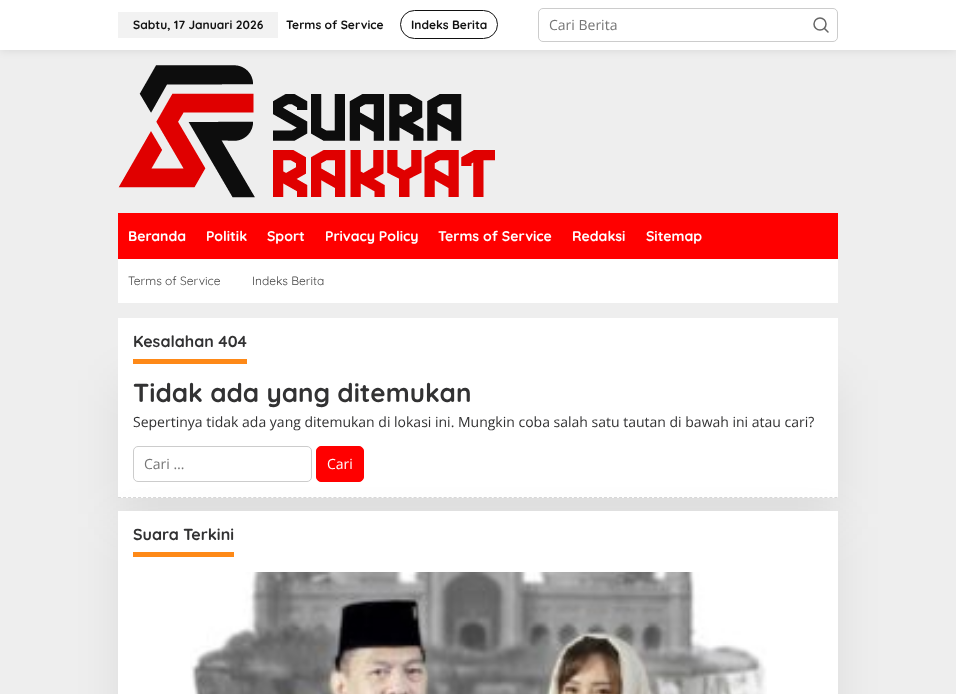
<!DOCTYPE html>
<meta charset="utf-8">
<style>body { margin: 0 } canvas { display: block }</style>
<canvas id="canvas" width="956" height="694"></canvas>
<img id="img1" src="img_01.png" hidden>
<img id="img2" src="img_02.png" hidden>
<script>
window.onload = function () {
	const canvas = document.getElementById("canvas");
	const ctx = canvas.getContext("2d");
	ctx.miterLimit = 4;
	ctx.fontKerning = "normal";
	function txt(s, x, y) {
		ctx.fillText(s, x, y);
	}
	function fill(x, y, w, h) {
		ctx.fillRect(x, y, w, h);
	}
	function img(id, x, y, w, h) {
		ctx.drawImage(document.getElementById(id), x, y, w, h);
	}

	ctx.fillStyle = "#EEEEEE";
	fill(0, 0, 956, 694);
	img("img1", 118, 65, 377, 133);
	ctx.fillStyle = "rgba(0, 0, 0, 0.1)";
	ctx.filter = "blur(5px)";
	ctx.beginPath();
	ctx.rect(0, 0, 956, 50);
	ctx.fill();
	ctx.filter = "none";
	ctx.fillStyle = "#FFFFFF";
	fill(0, 0, 956, 50);
	ctx.fillStyle = "#F2F2F2";
	fill(118, 12, 160, 26);
	ctx.beginPath();
	ctx.roundRect(400.5, 10.5, 97, 28, 14);
	ctx.strokeStyle = "#111111";
	ctx.stroke();
	ctx.beginPath();
	ctx.roundRect(538.5, 8.5, 299, 33, 4.5);
	ctx.strokeStyle = "#CCCCCC";
	ctx.stroke();
	ctx.beginPath();
	ctx.arc(820, 24, 6, 0, Math.PI * 2);
	ctx.strokeStyle = "#666666";
	ctx.lineWidth = 1.5;
	ctx.stroke();
	ctx.beginPath();
	ctx.moveTo(828, 32);
	ctx.lineTo(824.5, 28.5);
	ctx.lineCap = "round";
	ctx.lineJoin = "round";
	ctx.stroke();
	ctx.fillStyle = "#FF0000";
	fill(118, 213, 720, 46);
	ctx.fillStyle = "#FFFFFF";
	fill(118, 259, 720, 44);
	ctx.fillStyle = "rgba(0, 0, 0, 0.07)";
	ctx.filter = "blur(22.5px)";
	ctx.beginPath();
	ctx.rect(118, 380, 720, 134);
	ctx.fill();
	ctx.filter = "none";
	ctx.fillStyle = "#FFFFFF";
	fill(118, 318, 720, 180);
	ctx.fillStyle = "#FE8917";
	fill(133, 359, 114, 5);
	ctx.beginPath();
	ctx.moveTo(118, 497.5);
	ctx.lineTo(838, 497.5);
	ctx.strokeStyle = "#D9D9D9";
	ctx.lineWidth = 1;
	ctx.lineCap = "butt";
	ctx.lineJoin = "miter";
	ctx.setLineDash([3, 2.01]);
	ctx.stroke();
	ctx.beginPath();
	ctx.roundRect(133.5, 446.5, 178, 35, 4.5);
	ctx.strokeStyle = "#CCCCCC";
	ctx.setLineDash([]);
	ctx.stroke();
	ctx.fillStyle = "#FF0000";
	ctx.beginPath();
	ctx.roundRect(316.5, 446.5, 47, 35, 4.5);
	ctx.fill();
	ctx.strokeStyle = "#FF0000";
	ctx.stroke();
	ctx.fillStyle = "rgba(0, 0, 0, 0.07)";
	ctx.filter = "blur(22.5px)";
	ctx.beginPath();
	ctx.rect(118, 527, 720, 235);
	ctx.fill();
	ctx.filter = "none";
	ctx.fillStyle = "#FFFFFF";
	fill(118, 511, 720, 183);
	ctx.fillStyle = "#FE8917";
	fill(133, 552, 101, 5);
	img("img2", 190, 572, 577, 122);
	ctx.font = "bold 12px Quicksand";
	ctx.fillStyle = "#111111";
	txt("Sabtu, 17 Januari 2026", 133, 29);
	txt("Terms of Service", 286, 29);
	txt("Indeks Berita", 411, 29);
	ctx.font = "14px Open Sans";
	ctx.fillStyle = "#757575";
	txt("Cari Berita", 549, 30);
	ctx.font = "bold 14px Quicksand";
	ctx.fillStyle = "#FFFFFF";
	txt("Beranda", 128, 241);
	txt("Politik", 206, 241);
	txt("Sport", 267, 241);
	txt("Privacy Policy", 325, 241);
	txt("Terms of Service", 438, 241);
	txt("Redaksi", 572, 241);
	txt("Sitemap", 646, 241);
	ctx.font = "12px Quicksand";
	ctx.fillStyle = "#444444";
	txt("Terms of Service", 128, 285);
	txt("Indeks Berita", 252, 285);
	ctx.font = "bold 16px Quicksand";
	ctx.fillStyle = "#323233";
	txt("Kesalahan 404", 133, 347);
	ctx.font = "bold 26px Quicksand";
	txt("Tidak ada yang ditemukan", 133, 402);
	ctx.font = "14px Open Sans";
	txt("Sepertinya tidak ada yang ditemukan di lokasi ini. Mungkin coba salah satu tautan di bawah ini atau cari?", 133, 427);
	ctx.fillStyle = "#757575";
	txt("Cari …", 144, 469);
	ctx.fillStyle = "#FFFFFF";
	txt("Cari", 327, 469);
	ctx.font = "bold 16px Quicksand";
	ctx.fillStyle = "#323233";
	txt("Suara Terkini", 133, 540);
};
</script>
